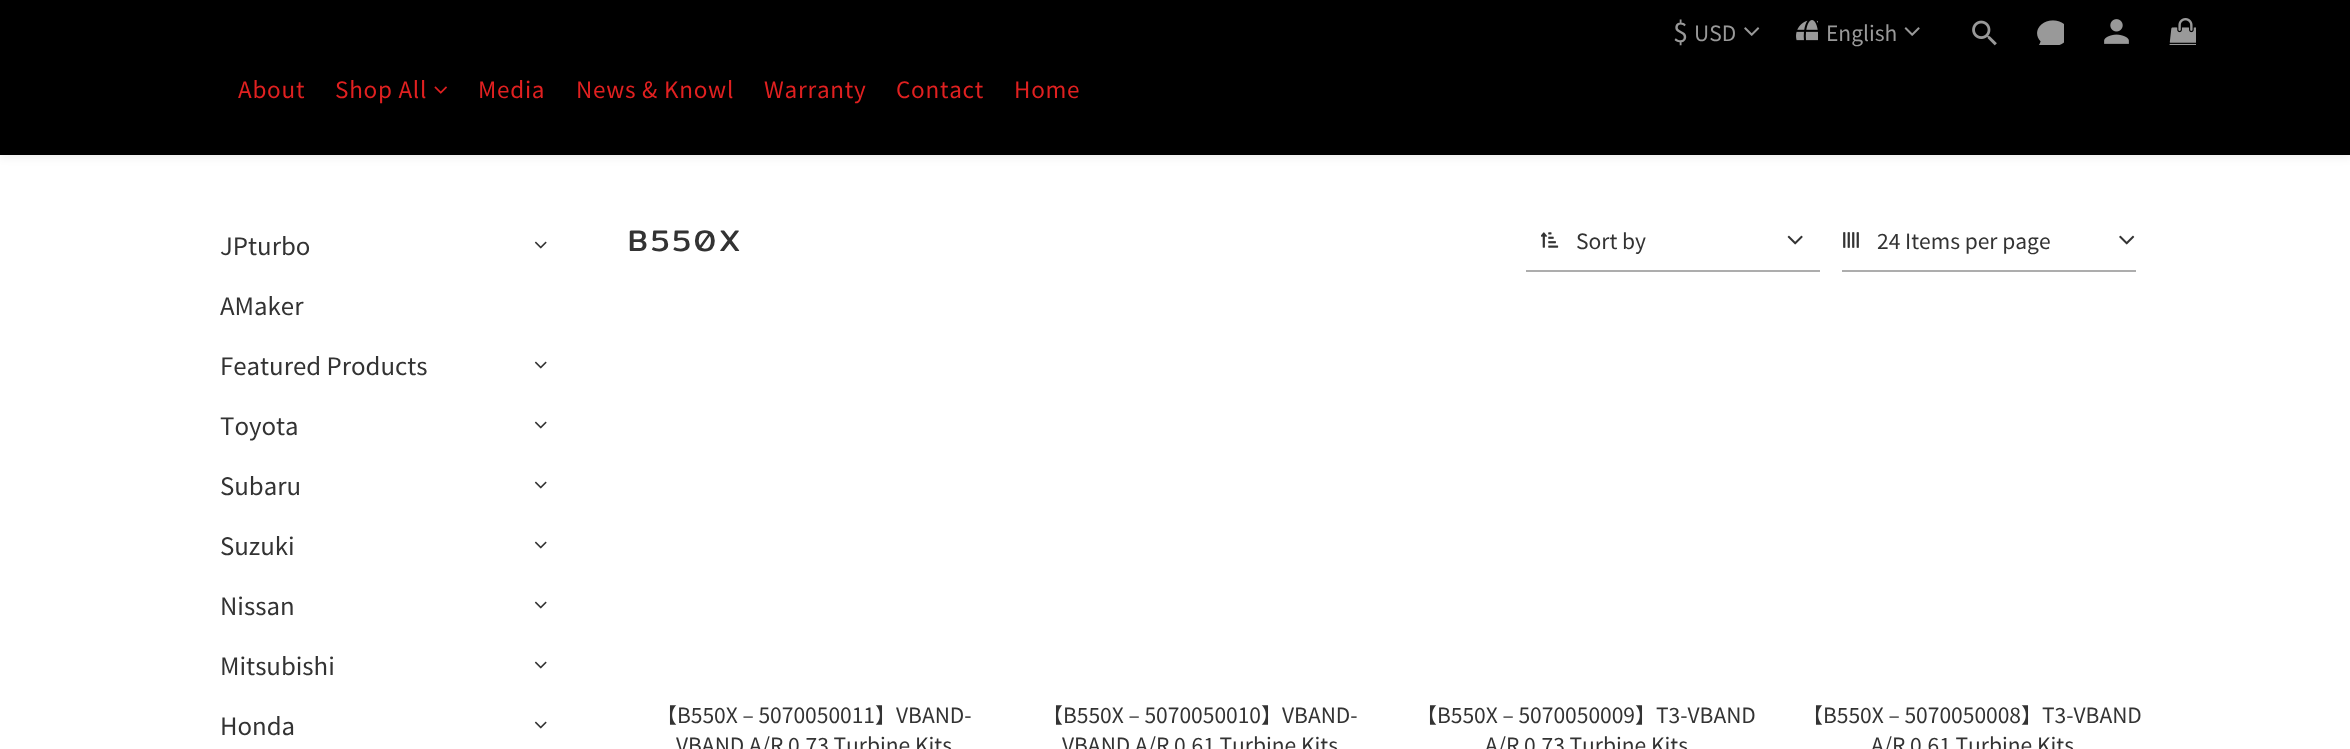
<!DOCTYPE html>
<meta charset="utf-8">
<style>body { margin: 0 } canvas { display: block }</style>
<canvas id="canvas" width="2350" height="749"></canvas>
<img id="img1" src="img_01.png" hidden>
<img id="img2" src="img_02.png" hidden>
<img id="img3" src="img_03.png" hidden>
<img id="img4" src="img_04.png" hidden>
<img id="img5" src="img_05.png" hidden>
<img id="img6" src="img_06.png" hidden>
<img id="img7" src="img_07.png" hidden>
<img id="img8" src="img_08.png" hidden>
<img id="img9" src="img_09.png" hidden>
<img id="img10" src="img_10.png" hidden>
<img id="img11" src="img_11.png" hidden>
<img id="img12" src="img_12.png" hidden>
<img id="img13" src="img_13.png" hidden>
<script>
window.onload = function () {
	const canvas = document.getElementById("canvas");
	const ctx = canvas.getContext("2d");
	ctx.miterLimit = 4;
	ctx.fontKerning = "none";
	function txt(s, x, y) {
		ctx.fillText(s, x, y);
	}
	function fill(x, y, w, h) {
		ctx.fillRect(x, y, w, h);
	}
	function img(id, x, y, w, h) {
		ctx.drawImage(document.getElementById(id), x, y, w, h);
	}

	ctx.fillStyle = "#FFFFFF";
	fill(0, 0, 2350, 749);
	ctx.fillStyle = "rgba(0, 0, 0, 0.06)";
	ctx.filter = "blur(4.5px)";
	ctx.beginPath();
	ctx.rect(0, 3, 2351, 155);
	ctx.fill();
	ctx.filter = "none";
	ctx.fillStyle = "#000000";
	fill(0, 0, 2350, 155);
	img("img1", 1744, 27, 16, 9);
	img("img2", 1796, 20, 22, 21);
	img("img3", 1904, 27, 16, 9);
	img("img4", 1972, 20, 25, 26);
	img("img5", 2037, 20, 27, 25);
	img("img6", 2104, 19, 25, 25);
	img("img7", 2169, 18, 27, 27);
	img("img8", 434, 86, 13, 8);
	img("img9", 534, 241, 13, 8);
	img("img9", 534, 361, 13, 8);
	img("img9", 534, 421, 13, 8);
	img("img9", 534, 481, 13, 8);
	img("img9", 534, 541, 13, 8);
	img("img9", 534, 601, 13, 8);
	img("img9", 534, 661, 13, 8);
	img("img9", 534, 721, 13, 8);
	ctx.fillStyle = "#ADADAD";
	fill(1526, 270, 294, 2);
	img("img10", 1541, 232, 18, 16);
	img("img11", 1787, 235, 16, 10);
	fill(1842, 270, 294, 2);
	img("img12", 1843, 232, 16, 16);
	img("img13", 2119, 235, 16, 10);
	ctx.letterSpacing = "2px";
	ctx.font = "27px Noto Sans TC";
	ctx.fillStyle = "#999999";
	txt("$", 1673, 42);
	ctx.letterSpacing = "0px";
	ctx.font = "21px Noto Sans TC";
	txt("USD", 1694, 41);
	txt("English", 1826, 41);
	ctx.letterSpacing = "0.75px";
	ctx.font = "22.5px Noto Sans TC";
	ctx.fillStyle = "#E02020";
	txt("About", 238, 98);
	txt("Shop All", 335, 98);
	txt("Media", 478, 98);
	txt("News & Knowl", 576, 98);
	txt("Warranty", 764, 98);
	txt("Contact", 896, 98);
	txt("Home", 1014, 98);
	ctx.letterSpacing = "0px";
	ctx.font = "24px Noto Sans TC";
	ctx.fillStyle = "#333333";
	txt("JPturbo", 220, 255);
	txt("AMaker", 220, 315);
	txt("Featured Products", 220, 375);
	txt("Toyota", 220, 435);
	txt("Subaru", 220, 495);
	txt("Suzuki", 220, 555);
	txt("Nissan", 220, 615);
	txt("Mitsubishi", 220, 675);
	txt("Honda", 220, 735);
	ctx.letterSpacing = "3px";
	ctx.font = "30px Mitr";
	txt("B550X", 628, 251);
	ctx.letterSpacing = "0px";
	ctx.font = "21px Noto Sans TC";
	txt("Sort by", 1576, 249);
	txt("24 Items per page", 1877, 249);
	txt("【B550X – 5070050011】VBAND-", 656, 723);
	txt("VBAND A/R 0.73 Turbine Kits", 676, 753);
	txt("【B550X – 5070050010】VBAND-", 1042, 723);
	txt("VBAND A/R 0.61 Turbine Kits", 1062, 753);
	txt("【B550X – 5070050009】T3-VBAND", 1416, 723);
	txt("A/R 0.73 Turbine Kits", 1485, 753);
	txt("【B550X – 5070050008】T3-VBAND", 1802, 723);
	txt("A/R 0.61 Turbine Kits", 1871, 753);
};
</script>
